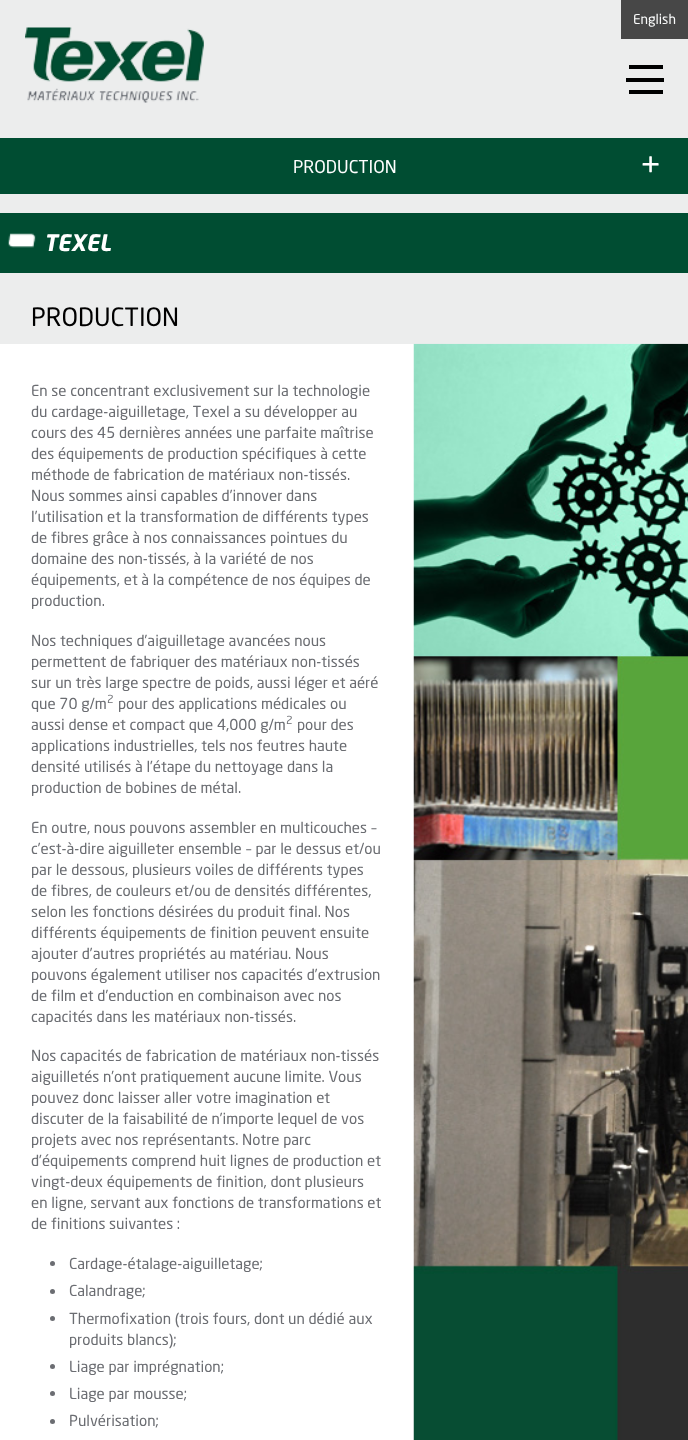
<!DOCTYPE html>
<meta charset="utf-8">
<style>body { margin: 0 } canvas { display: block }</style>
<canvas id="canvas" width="688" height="1440"></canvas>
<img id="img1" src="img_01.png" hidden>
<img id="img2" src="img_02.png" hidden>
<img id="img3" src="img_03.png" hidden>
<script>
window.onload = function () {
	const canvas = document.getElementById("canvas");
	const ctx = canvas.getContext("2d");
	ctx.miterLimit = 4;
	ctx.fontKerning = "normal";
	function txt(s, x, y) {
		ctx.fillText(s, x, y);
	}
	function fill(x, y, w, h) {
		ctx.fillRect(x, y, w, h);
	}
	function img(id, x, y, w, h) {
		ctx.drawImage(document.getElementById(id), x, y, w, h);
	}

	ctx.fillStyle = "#ECEDED";
	fill(0, 0, 688, 1440);
	ctx.fillStyle = "#474747";
	fill(621, 0, 67, 39);
	img("img1", 25, 27, 179, 76);
	ctx.fillStyle = "#000000";
	fill(626, 78, 38, 4);
	fill(629, 65, 34, 4);
	fill(629, 90, 34, 4);
	ctx.fillStyle = "#004D32";
	fill(0, 138, 688, 56);
	fill(0, 213, 688, 60);
	img("img2", 8, 233, 28, 15);
	ctx.fillStyle = "#FFFFFF";
	fill(0, 344, 414, 1096);
	ctx.fillStyle = "#6B6D72";
	ctx.beginPath();
	ctx.arc(52.5, 1263.5, 2.5, 0, Math.PI * 2);
	ctx.fill();
	ctx.beginPath();
	ctx.arc(52.5, 1291.5, 2.5, 0, Math.PI * 2);
	ctx.fill();
	ctx.beginPath();
	ctx.arc(52.5, 1318.5, 2.5, 0, Math.PI * 2);
	ctx.fill();
	ctx.beginPath();
	ctx.arc(52.5, 1366.5, 2.5, 0, Math.PI * 2);
	ctx.fill();
	ctx.beginPath();
	ctx.arc(52.5, 1393.5, 2.5, 0, Math.PI * 2);
	ctx.fill();
	ctx.beginPath();
	ctx.arc(52.5, 1421.5, 2.5, 0, Math.PI * 2);
	ctx.fill();
	img("img3", 413, 343, 275, 1097);
	ctx.font = "13.5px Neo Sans";
	ctx.fillStyle = "#F9FAFA";
	txt("English", 633, 24);
	ctx.font = "17.5px Neo Sans";
	ctx.fillStyle = "#FFFFFF";
	txt("PRODUCTION", 293, 173);
	ctx.font = "35px Neo Sans";
	txt("+", 640, 178);
	ctx.font = "italic bold 22.5px Neo Sans";
	txt("TEXEL", 44, 251);
	ctx.font = "25px Neo Sans";
	ctx.fillStyle = "#000000";
	txt("PRODUCTION", 31, 326);
	ctx.font = "15px Neo Sans";
	ctx.fillStyle = "#6B6D72";
	txt("En se concentrant exclusivement sur la technologie", 31, 396);
	txt("du cardage-aiguilletage, Texel a su développer au", 31, 417);
	txt("cours des 45 dernières années une parfaite maîtrise", 31, 438);
	txt("des équipements de production spécifiques à cette", 31, 459);
	txt("méthode de fabrication de matériaux non-tissés.", 31, 480);
	txt("Nous sommes ainsi capables d’innover dans", 31, 501);
	txt("l’utilisation et la transformation de différents types", 31, 522);
	txt("de fibres grâce à nos connaissances pointues du", 31, 543);
	txt("domaine des non-tissés, à la variété de nos", 31, 564);
	txt("équipements, et à la compétence de nos équipes de", 31, 585);
	txt("production.", 31, 606);
	txt("Nos techniques d’aiguilletage avancées nous", 31, 646);
	txt("permettent de fabriquer des matériaux non-tissés", 31, 667);
	txt("sur un très large spectre de poids, aussi léger et aéré", 31, 688);
	txt("que 70 g/m", 31, 709);
	ctx.font = "11px Neo Sans";
	txt("2", 107, 703);
	ctx.font = "15px Neo Sans";
	txt("pour des applications médicales ou", 118, 709);
	txt("aussi dense et compact que 4,000 g/m", 31, 730);
	ctx.font = "11px Neo Sans";
	txt("2", 286, 724);
	ctx.font = "15px Neo Sans";
	txt("pour des", 297, 730);
	txt("applications industrielles, tels nos feutres haute", 31, 751);
	txt("densité utilisés à l’étape du nettoyage dans la", 31, 772);
	txt("production de bobines de métal.", 31, 793);
	txt("En outre, nous pouvons assembler en multicouches –", 31, 833);
	txt("c’est-à-dire aiguilleter ensemble – par le dessus et/ou", 31, 854);
	txt("par le dessous, plusieurs voiles de différents types", 31, 875);
	txt("de fibres, de couleurs et/ou de densités différentes,", 31, 896);
	txt("selon les fonctions désirées du produit final. Nos", 31, 917);
	txt("différents équipements de finition peuvent ensuite", 31, 938);
	txt("ajouter d’autres propriétés au matériau. Nous", 31, 959);
	txt("pouvons également utiliser nos capacités d’extrusion", 31, 980);
	txt("de film et d’enduction en combinaison avec nos", 31, 1001);
	txt("capacités dans les matériaux non-tissés.", 31, 1022);
	txt("Nos capacités de fabrication de matériaux non-tissés", 31, 1061);
	txt("aiguilletés n’ont pratiquement aucune limite. Vous", 31, 1082);
	txt("pouvez donc laisser aller votre imagination et", 31, 1103);
	txt("discuter de la faisabilité de n’importe lequel de vos", 31, 1124);
	txt("projets avec nos représentants. Notre parc", 31, 1145);
	txt("d’équipements comprend huit lignes de production et", 31, 1166);
	txt("vingt-deux équipements de finition, dont plusieurs", 31, 1187);
	txt("en ligne, servant aux fonctions de transformations et", 31, 1208);
	txt("de finitions suivantes :", 31, 1229);
	txt("Cardage-étalage-aiguilletage;", 69, 1269);
	txt("Calandrage;", 69, 1296);
	txt("Thermofixation (trois fours, dont un dédié aux", 69, 1324);
	txt("produits blancs);", 69, 1345);
	txt("Liage par imprégnation;", 69, 1372);
	txt("Liage par mousse;", 69, 1399);
	txt("Pulvérisation;", 69, 1426);
};
</script>
